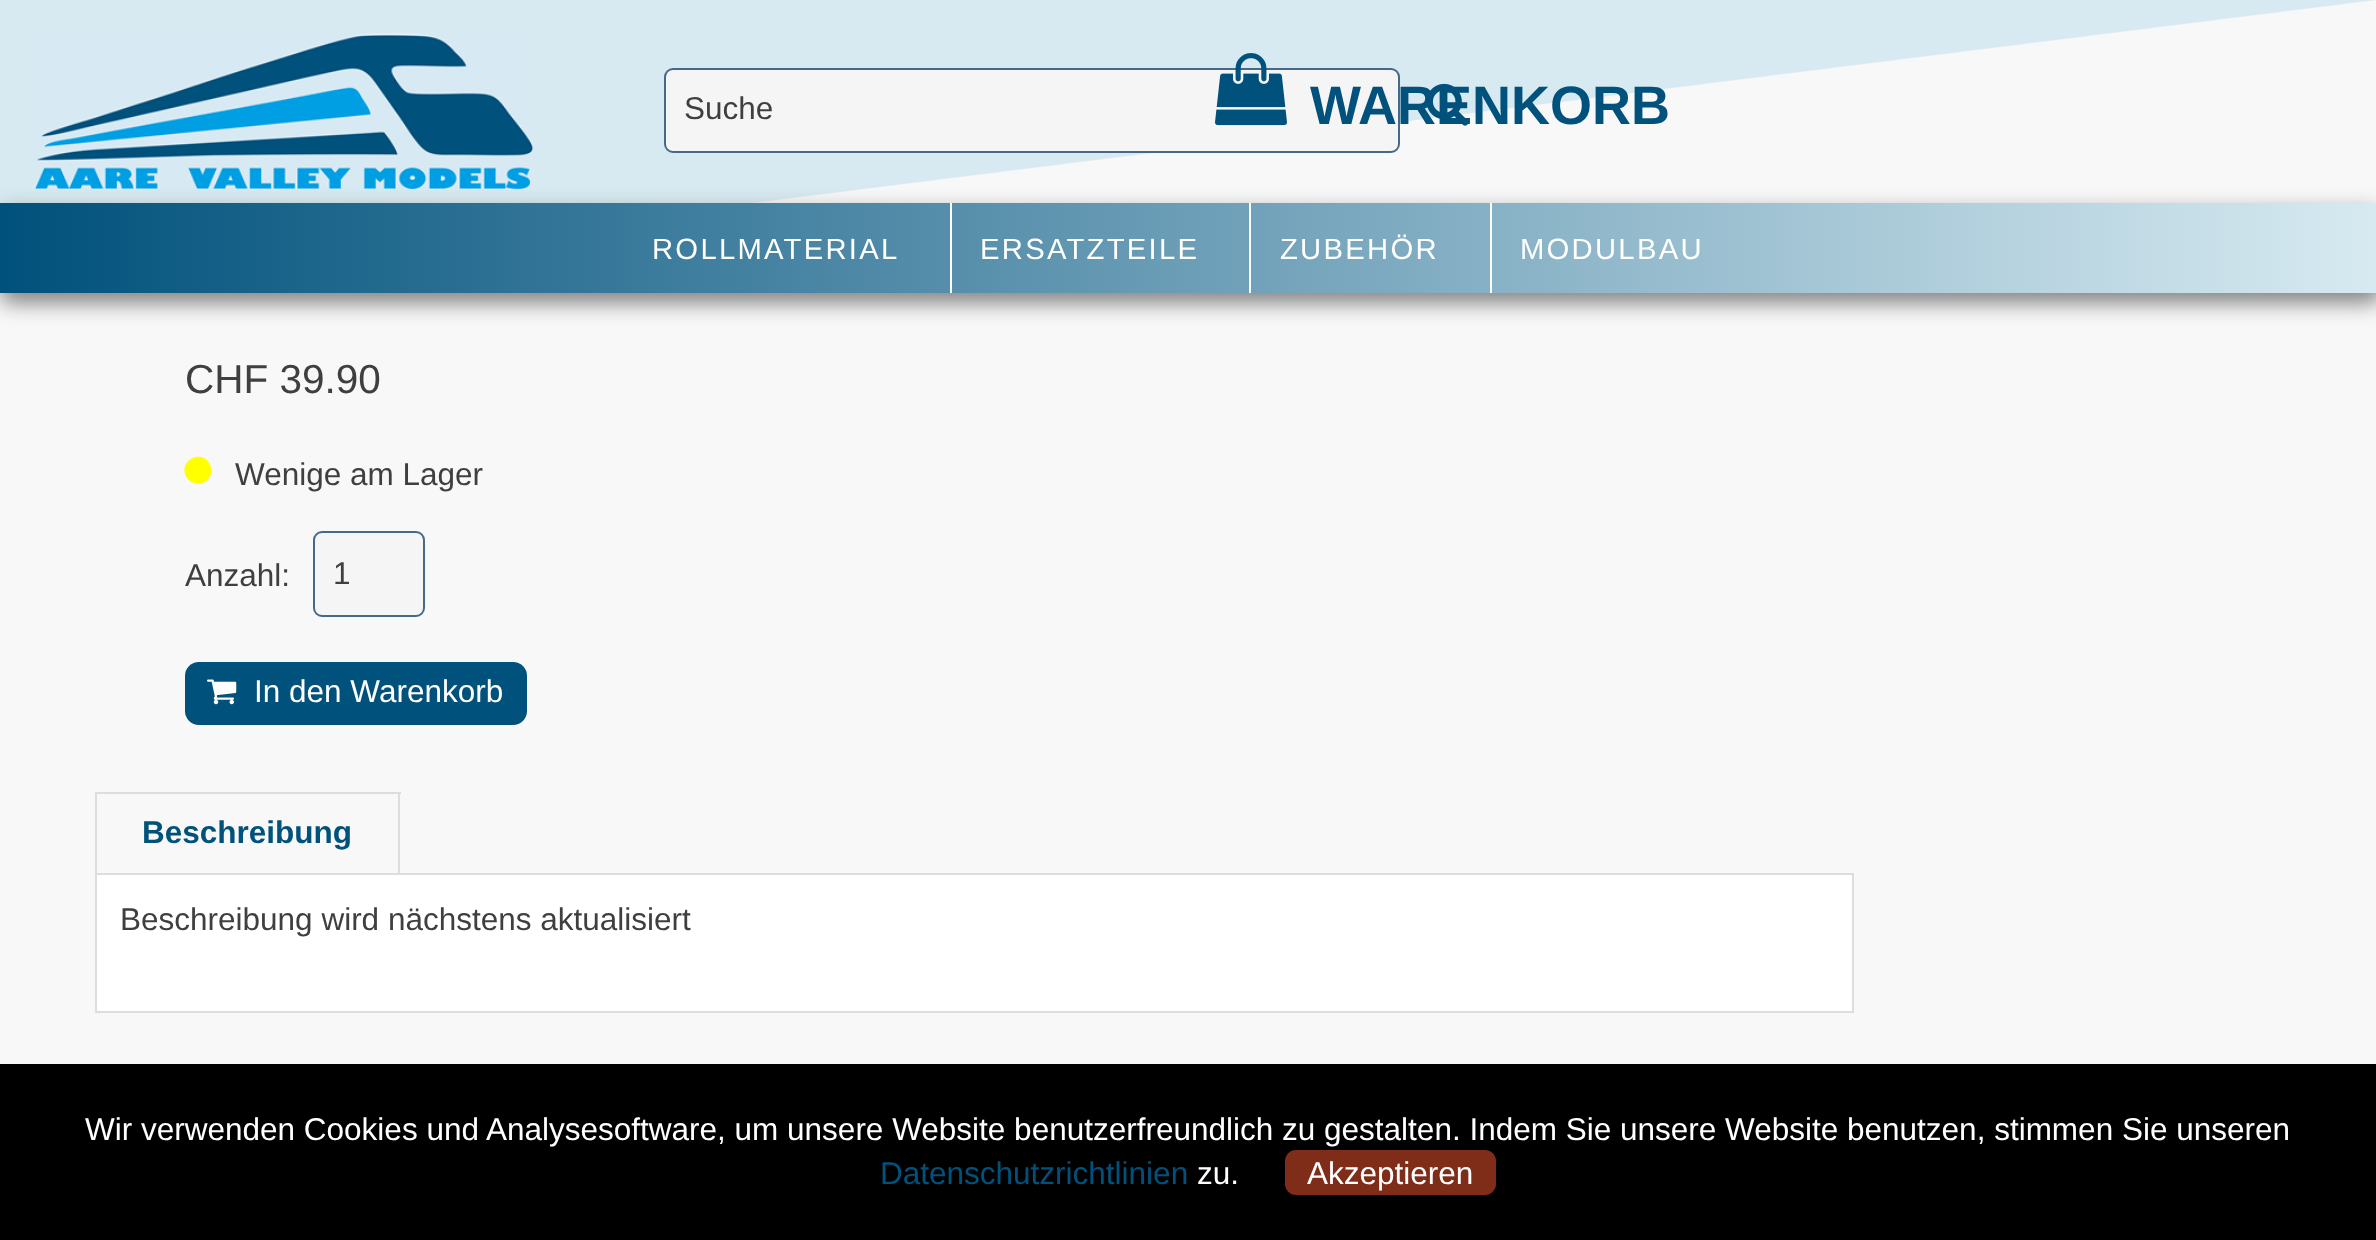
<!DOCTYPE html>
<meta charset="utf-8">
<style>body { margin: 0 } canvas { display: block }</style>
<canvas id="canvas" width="2376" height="1240"></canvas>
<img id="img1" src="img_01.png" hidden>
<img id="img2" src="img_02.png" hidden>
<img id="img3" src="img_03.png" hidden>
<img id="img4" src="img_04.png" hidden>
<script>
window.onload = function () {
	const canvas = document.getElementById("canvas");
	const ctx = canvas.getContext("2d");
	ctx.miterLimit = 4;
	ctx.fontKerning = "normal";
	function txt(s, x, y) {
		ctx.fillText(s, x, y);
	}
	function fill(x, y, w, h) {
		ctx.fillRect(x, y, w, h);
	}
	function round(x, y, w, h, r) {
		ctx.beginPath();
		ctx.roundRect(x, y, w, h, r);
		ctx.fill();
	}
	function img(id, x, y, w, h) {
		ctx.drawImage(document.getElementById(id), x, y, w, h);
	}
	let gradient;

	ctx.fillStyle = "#F8F8F8";
	fill(0, 0, 2376, 1240);
	ctx.fillStyle = "#AAAAAA";
	ctx.filter = "blur(11px)";
	ctx.beginPath();
	ctx.rect(5, 11, 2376, 282);
	ctx.fill();
	ctx.filter = "none";
	ctx.fillStyle = "#D7EAF1";
	fill(0, 0, 2376, 203);
	img("img1", 33, 33, 501, 157);
	ctx.fillStyle = "#F8F8F8";
	ctx.beginPath();
	ctx.moveTo(2376, 225);
	ctx.lineTo(576, 225);
	ctx.lineTo(2376, 0);
	ctx.closePath();
	ctx.fill();
	ctx.fillStyle = "#F5F5F5";
	ctx.beginPath();
	ctx.roundRect(665, 69, 734, 83, 8);
	ctx.fill();
	ctx.strokeStyle = "#466989";
	ctx.lineWidth = 2;
	ctx.stroke();
	img("img2", 1426, 83, 43, 43);
	img("img3", 1215, 53, 72, 73);
	ctx.fillStyle = "#888888";
	ctx.filter = "blur(11px)";
	ctx.beginPath();
	ctx.rect(2, 212, 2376, 90);
	ctx.fill();
	ctx.filter = "none";
	gradient = ctx.createLinearGradient(2376, 247, 0, 248);
	gradient.addColorStop(0, "#D7EAF1");
	gradient.addColorStop(1, "#00517C");
	ctx.fillStyle = gradient;
	fill(0, 203, 2376, 90);
	ctx.fillStyle = "#FFFFFF";
	fill(950, 203, 2, 90);
	fill(1249, 203, 2, 90);
	fill(1490, 203, 2, 90);
	ctx.fillStyle = "#FFFF00";
	ctx.beginPath();
	ctx.moveTo(209.5, 463.5);
	ctx.bezierCurveTo(211, 466, 211.5, 468.5, 211.5, 471);
	ctx.bezierCurveTo(210.5, 484.5, 193, 488.5, 186.5, 477);
	ctx.bezierCurveTo(177.5, 461.5, 200.5, 448, 209.5, 463.5);
	ctx.closePath();
	ctx.fill();
	ctx.fillStyle = "#F5F5F5";
	ctx.beginPath();
	ctx.roundRect(314, 532, 110, 84, 8);
	ctx.fill();
	ctx.stroke();
	ctx.fillStyle = "#00517C";
	round(185, 662, 342, 63, 14);
	img("img4", 207, 679, 30, 26);
	ctx.fillStyle = "#DDDDDD";
	fill(95, 792, 306, 2);
	fill(398, 792, 2, 81);
	fill(95, 792, 2, 81);
	ctx.fillStyle = "#FFFFFF";
	ctx.beginPath();
	ctx.rect(96, 874, 1757, 138);
	ctx.fill();
	ctx.strokeStyle = "#DDDDDD";
	ctx.stroke();
	ctx.fillStyle = "#000000";
	fill(0, 1064, 2376, 176);
	ctx.fillStyle = "#7F2D18";
	round(1285, 1150, 211, 45, 11);
	ctx.font = "31.5px Liberation Sans";
	ctx.fillStyle = "#3F3F3F";
	txt("Suche", 684, 119);
	ctx.font = "bold 54px Liberation Sans";
	ctx.fillStyle = "#00517C";
	txt("WARENKORB", 1310, 124);
	ctx.letterSpacing = "2.25px";
	ctx.font = "29.25px Liberation Sans";
	ctx.fillStyle = "#FFFFFF";
	txt("ROLLMATERIAL", 652, 259);
	txt("ERSATZTEILE", 980, 259);
	txt("ZUBEHÖR", 1280, 259);
	txt("MODULBAU", 1520, 259);
	ctx.letterSpacing = "0px";
	ctx.font = "40.5px Liberation Sans";
	ctx.fillStyle = "#3F3F3F";
	txt("CHF 39.90", 185, 393);
	ctx.font = "31.5px Liberation Sans";
	txt("Wenige am Lager", 235, 485);
	txt("Anzahl:", 185, 586);
	txt("1", 333, 584);
	ctx.fillStyle = "#FFFFFF";
	txt("In den Warenkorb", 254, 702);
	ctx.font = "bold 31.5px Liberation Sans";
	ctx.fillStyle = "#00517C";
	txt("Beschreibung", 142, 843);
	ctx.font = "31.5px Liberation Sans";
	ctx.fillStyle = "#3F3F3F";
	txt("Beschreibung wird nächstens aktualisiert", 120, 930);
	ctx.fillStyle = "#FFFFFF";
	txt("Wir verwenden Cookies und Analysesoftware, um unsere Website benutzerfreundlich zu gestalten. Indem Sie unsere Website benutzen, stimmen Sie unseren", 85, 1140);
	ctx.fillStyle = "#00517C";
	txt("Datenschutzrichtlinien", 880, 1184);
	ctx.fillStyle = "#FFFFFF";
	txt("zu.", 1197, 1184);
	txt("Akzeptieren", 1307, 1184);
};
</script>
